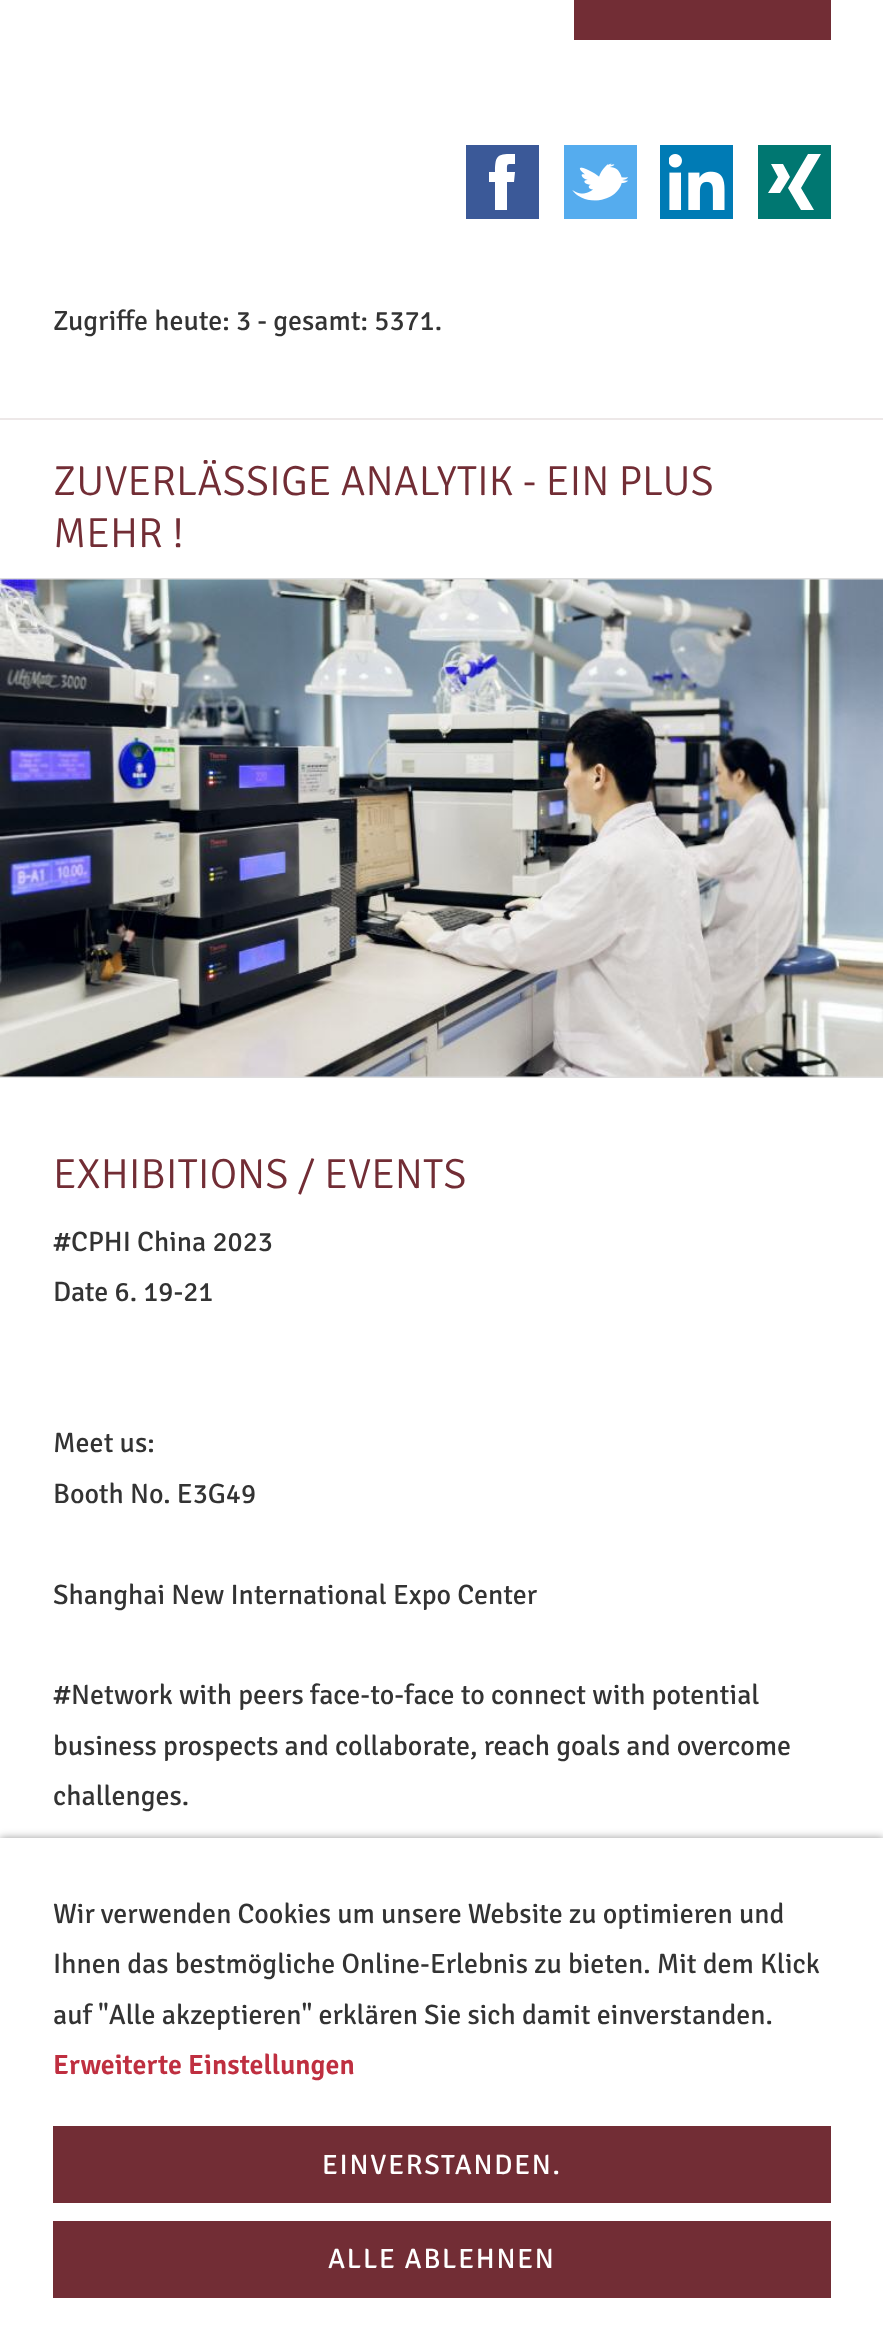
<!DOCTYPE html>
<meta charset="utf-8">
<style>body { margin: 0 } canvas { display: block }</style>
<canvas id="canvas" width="883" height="2349"></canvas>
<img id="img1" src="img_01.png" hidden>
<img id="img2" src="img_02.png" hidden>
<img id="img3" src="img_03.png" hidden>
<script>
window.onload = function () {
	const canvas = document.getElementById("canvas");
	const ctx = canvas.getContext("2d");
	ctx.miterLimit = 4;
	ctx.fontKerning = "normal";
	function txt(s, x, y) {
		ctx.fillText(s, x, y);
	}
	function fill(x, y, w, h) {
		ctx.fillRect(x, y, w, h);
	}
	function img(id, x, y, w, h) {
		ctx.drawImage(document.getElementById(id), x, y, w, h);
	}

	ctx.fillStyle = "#FFFFFF";
	fill(0, 0, 883, 2349);
	ctx.fillStyle = "#722D35";
	fill(574, 0, 257, 40);
	ctx.fillStyle = "#3B5998";
	fill(466, 145, 73, 74);
	ctx.fillStyle = "#FFFFFF";
	ctx.beginPath();
	ctx.moveTo(495, 210);
	ctx.lineTo(507, 210);
	ctx.lineTo(507, 182);
	ctx.lineTo(514, 182);
	ctx.lineTo(515, 172);
	ctx.lineTo(507, 172);
	ctx.bezierCurveTo(507, 163, 506, 164, 515, 164);
	ctx.lineTo(515, 154);
	ctx.bezierCurveTo(498, 154, 495, 154, 495, 172);
	ctx.lineTo(489, 172);
	ctx.lineTo(489, 182);
	ctx.lineTo(495, 182);
	ctx.closePath();
	ctx.fill();
	ctx.fillStyle = "#55ACEE";
	fill(564, 145, 73, 74);
	img("img1", 572, 163, 56, 38);
	ctx.fillStyle = "#007BB5";
	fill(660, 145, 73, 74);
	img("img2", 669, 154, 56, 56);
	ctx.fillStyle = "#007771";
	fill(758, 145, 73, 74);
	ctx.fillStyle = "#FFFFFF";
	ctx.beginPath();
	ctx.moveTo(801, 210);
	ctx.lineTo(788, 188);
	ctx.lineTo(808, 154);
	ctx.lineTo(821, 154);
	ctx.lineTo(801, 188);
	ctx.lineTo(814, 210);
	ctx.closePath();
	ctx.moveTo(780, 193);
	ctx.lineTo(790, 177);
	ctx.lineTo(783, 164);
	ctx.lineTo(771, 164);
	ctx.lineTo(778, 177);
	ctx.lineTo(768, 193);
	ctx.closePath();
	ctx.fill();
	ctx.fillStyle = "#EDE8E8";
	fill(0, 418, 883, 2);
	ctx.fillStyle = "#DDDDDD";
	fill(0, 578, 883, 2);
	fill(0, 1076, 883, 2);
	img("img3", 0, 579, 883, 498);
	ctx.fillStyle = "rgba(0, 0, 0, 0.4)";
	ctx.filter = "blur(4.5px)";
	ctx.beginPath();
	ctx.rect(0, 1838, 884, 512);
	ctx.fill();
	ctx.filter = "none";
	ctx.fillStyle = "#FFFFFF";
	fill(0, 1838, 883, 511);
	ctx.fillStyle = "#722D35";
	fill(53, 2126, 778, 77);
	fill(53, 2221, 778, 77);
	ctx.font = "28px Signika";
	ctx.fillStyle = "#333333";
	txt("Zugriffe heute: 3 - gesamt: 5371.", 53, 330);
	ctx.font = "300 42px Signika";
	ctx.fillStyle = "#722D35";
	txt("ZUVERLÄSSIGE ANALYTIK - EIN PLUS", 53, 495);
	txt("MEHR !", 53, 547);
	txt("EXHIBITIONS / EVENTS", 53, 1188);
	ctx.font = "28px Signika";
	ctx.fillStyle = "#333333";
	txt("#CPHI China 2023", 53, 1251);
	txt("Date 6. 19-21", 53, 1301);
	txt("Meet us:", 53, 1452);
	txt("Booth No. E3G49", 53, 1503);
	txt("Shanghai New International Expo Center", 53, 1604);
	txt("#Network with peers face-to-face to connect with potential", 53, 1704);
	txt("business prospects and collaborate, reach goals and overcome", 53, 1755);
	txt("challenges.", 53, 1805);
	txt("Wir verwenden Cookies um unsere Website zu optimieren und", 53, 1923);
	txt("Ihnen das bestmögliche Online-Erlebnis zu bieten. Mit dem Klick", 53, 1973);
	txt("auf \"Alle akzeptieren\" erklären Sie sich damit einverstanden.", 53, 2024);
	ctx.font = "600 28px Signika";
	ctx.fillStyle = "#BF2F40";
	txt("Erweiterte Einstellungen", 53, 2074);
	ctx.letterSpacing = "1.75px";
	ctx.font = "28px Signika";
	ctx.fillStyle = "#FFFFFF";
	txt("EINVERSTANDEN.", 322, 2174);
	txt("ALLE ABLEHNEN", 328, 2268);
};
</script>
